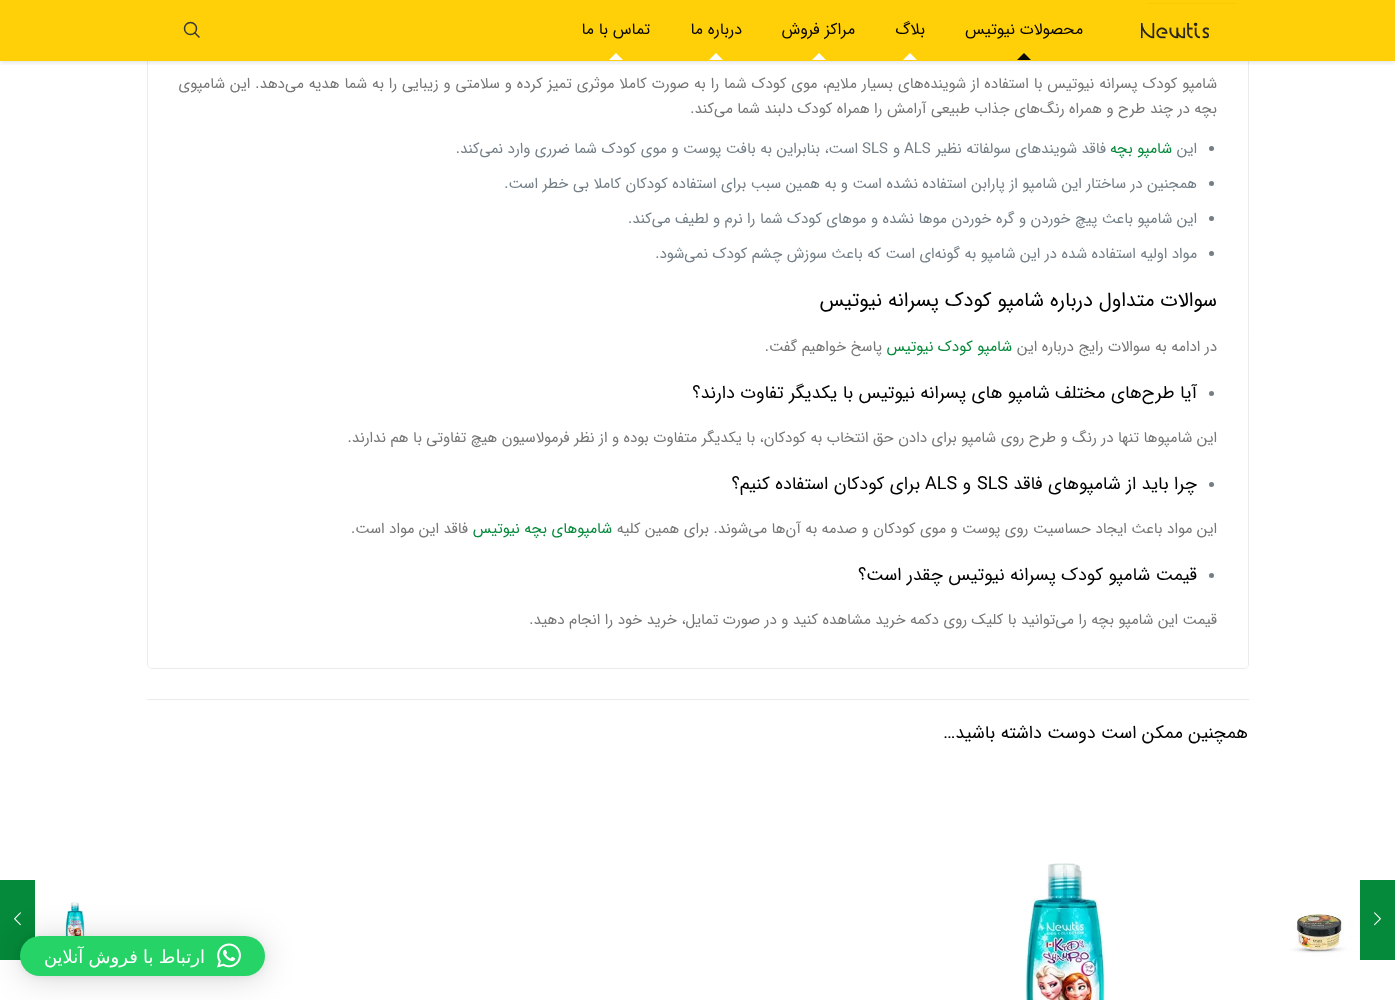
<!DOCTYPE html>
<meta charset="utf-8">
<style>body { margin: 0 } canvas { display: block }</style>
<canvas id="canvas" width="1395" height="1000"></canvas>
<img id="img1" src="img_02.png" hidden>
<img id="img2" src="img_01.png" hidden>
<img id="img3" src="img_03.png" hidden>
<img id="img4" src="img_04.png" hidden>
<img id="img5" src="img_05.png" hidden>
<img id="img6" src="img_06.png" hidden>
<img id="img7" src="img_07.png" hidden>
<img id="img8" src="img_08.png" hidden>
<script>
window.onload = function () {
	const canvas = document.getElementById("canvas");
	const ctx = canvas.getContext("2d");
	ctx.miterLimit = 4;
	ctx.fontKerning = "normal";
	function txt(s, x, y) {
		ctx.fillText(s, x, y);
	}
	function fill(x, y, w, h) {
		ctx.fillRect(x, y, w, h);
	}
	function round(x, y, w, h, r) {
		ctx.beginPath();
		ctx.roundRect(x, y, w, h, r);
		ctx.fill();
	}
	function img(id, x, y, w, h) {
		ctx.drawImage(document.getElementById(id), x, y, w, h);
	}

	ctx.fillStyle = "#FFFFFF";
	fill(0, 0, 1395, 1000);
	ctx.beginPath();
	ctx.roundRect(147.5, -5.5, 1101, 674, 4.5);
	ctx.strokeStyle = "#EBEBEB";
	ctx.stroke();
	ctx.fillStyle = "#F6F6F6";
	fill(148, 0, 988, 3);
	ctx.fillStyle = "#E2E2E2";
	fill(148, 3, 989, 1);
	fill(1136, 0, 1, 3);
	ctx.fillStyle = "#05893A";
	fill(1148, 3, 88, 1);
	ctx.fillStyle = "#E2E2E2";
	fill(1032, 0, 1, 3);
	fill(933, 0, 1, 3);
	fill(804, 0, 1, 3);
	fill(700, 0, 1, 3);
	ctx.fillStyle = "#FFFFFF";
	ctx.beginPath();
	ctx.roundRect(148, 4, 1100, 664, [0, 0, 4, 4]);
	ctx.fill();
	img("img1", 148, 4, 989, 2);
	ctx.save();
	ctx.beginPath();
	ctx.rect(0, 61, 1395, 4);
	ctx.clip();
	ctx.fillStyle = "rgba(0, 0, 0, 0.1)";
	ctx.filter = "blur(2.5px)";
	ctx.beginPath();
	ctx.rect(0, 2, 1395, 61);
	ctx.fill();
	ctx.filter = "none";
	ctx.restore();
	ctx.fillStyle = "rgba(255, 205, 0, 0.97)";
	fill(0, 0, 1395, 61);
	img("img2", 1140, 22, 70, 17);
	ctx.fillStyle = "#080808";
	ctx.beginPath();
	ctx.moveTo(1031, 60);
	ctx.lineTo(1017, 60);
	ctx.lineTo(1024, 53);
	ctx.closePath();
	ctx.fill();
	ctx.fillStyle = "#FFFFFF";
	ctx.beginPath();
	ctx.moveTo(917, 60);
	ctx.lineTo(903, 60);
	ctx.lineTo(910, 53);
	ctx.closePath();
	ctx.fill();
	ctx.beginPath();
	ctx.moveTo(826, 60);
	ctx.lineTo(812, 60);
	ctx.lineTo(819, 53);
	ctx.closePath();
	ctx.fill();
	ctx.beginPath();
	ctx.moveTo(723, 60);
	ctx.lineTo(709, 60);
	ctx.lineTo(716, 53);
	ctx.closePath();
	ctx.fill();
	ctx.beginPath();
	ctx.moveTo(623, 60);
	ctx.lineTo(609, 60);
	ctx.lineTo(616, 53);
	ctx.closePath();
	ctx.fill();
	ctx.beginPath();
	ctx.arc(190.5, 28.5, 6, 0, Math.PI * 2);
	ctx.strokeStyle = "#393939";
	ctx.lineWidth = 1.5;
	ctx.stroke();
	ctx.beginPath();
	ctx.moveTo(194.5, 32.5);
	ctx.lineTo(199.5, 37.5);
	ctx.stroke();
	ctx.fillStyle = "#737E86";
	ctx.beginPath();
	ctx.arc(1211.5, 148.5, 2.5, 0, Math.PI * 2);
	ctx.fill();
	ctx.beginPath();
	ctx.arc(1211.5, 183.5, 2.5, 0, Math.PI * 2);
	ctx.fill();
	ctx.beginPath();
	ctx.arc(1211.5, 218.5, 2.5, 0, Math.PI * 2);
	ctx.fill();
	ctx.beginPath();
	ctx.arc(1211.5, 253.5, 2.5, 0, Math.PI * 2);
	ctx.fill();
	ctx.beginPath();
	ctx.arc(1211.5, 393.5, 2.5, 0, Math.PI * 2);
	ctx.fill();
	ctx.beginPath();
	ctx.arc(1211.5, 484.5, 2.5, 0, Math.PI * 2);
	ctx.fill();
	ctx.beginPath();
	ctx.arc(1211.5, 575.5, 2.5, 0, Math.PI * 2);
	ctx.fill();
	ctx.fillStyle = "#EBEBEB";
	fill(147, 699, 1102, 1);
	img("img3", 1025, 863, 81, 137);
	ctx.fillStyle = "#05893A";
	fill(1360, 880, 35, 80);
	img("img4", 1374, 912, 7, 14);
	img("img5", 1280, 880, 80, 80);
	img("img6", 35, 880, 80, 57);
	fill(0, 880, 35, 80);
	img("img7", 14, 912, 7, 14);
	ctx.fillStyle = "rgba(0, 0, 0, 0.16)";
	ctx.filter = "blur(16px)";
	ctx.beginPath();
	ctx.roundRect(20, 938, 245, 40, 20);
	ctx.fill();
	ctx.filter = "none";
	ctx.fillStyle = "rgba(0, 0, 0, 0.06)";
	ctx.filter = "blur(3px)";
	ctx.beginPath();
	ctx.roundRect(20, 937, 245, 40, 20);
	ctx.fill();
	ctx.filter = "none";
	ctx.fillStyle = "#25D366";
	round(20, 936, 245, 40, 20);
	img("img8", 217, 943, 24, 25);
	ctx.direction = "rtl";
	ctx.font = "16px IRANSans";
	ctx.fillStyle = "#080600";
	txt("محصولات نیوتیس", 1083, 34);
	txt("بلاگ", 925, 34);
	txt("مراکز فروش", 855, 34);
	ctx.fillStyle = "#080808";
	txt("درباره ما", 742, 34);
	txt("تماس با ما", 650, 34);
	ctx.wordSpacing = "0.45px";
	ctx.font = "15px IRANSans";
	ctx.fillStyle = "#767676";
	txt("شامپو کودک پسرانه نیوتیس با استفاده از شوینده‌های بسیار ملایم، موی کودک شما را به صورت کاملا موثری تمیز کرده و سلامتی و زیبایی را به شما هدیه می‌دهد. این شامپوی", 1217, 88);
	ctx.wordSpacing = "0px";
	txt("بچه در چند طرح و همراه رنگ‌های جذاب طبیعی آرامش را همراه کودک دلبند شما می‌کند.", 1217, 113);
	ctx.fillStyle = "#737E86";
	txt("این", 1197, 153);
	ctx.fillStyle = "#05893A";
	txt("شامپو بچه", 1172, 153);
	ctx.fillStyle = "#737E86";
	txt("فاقد شویندهای سولفاته نظیر", 1106, 153);
	ctx.direction = "ltr";
	txt("ALS", 904, 153);
	ctx.direction = "rtl";
	txt("و", 900, 153);
	ctx.direction = "ltr";
	txt("SLS", 862, 153);
	ctx.direction = "rtl";
	txt("است، بنابراین به بافت پوست و موی کودک شما ضرری وارد نمی‌کند.", 858, 153);
	txt("همجنین در ساختار این شامپو از پارابن استفاده نشده است و به همین سبب برای استفاده کودکان کاملا بی خطر است.", 1197, 188);
	txt("این شامپو باعث پیچ خوردن و گره خوردن موها نشده و موهای کودک شما را نرم و لطیف می‌کند.", 1197, 223);
	txt("مواد اولیه استفاده شده در این شامپو به گونه‌ای است که باعث سوزش چشم کودک نمی‌شود.", 1197, 258);
	ctx.font = "20px IRANSans";
	ctx.fillStyle = "#000000";
	txt("سوالات متداول درباره شامپو کودک پسرانه نیوتیس", 1217, 306);
	ctx.font = "15px IRANSans";
	ctx.fillStyle = "#767676";
	txt("در ادامه به سوالات رایج درباره این", 1217, 351);
	ctx.fillStyle = "#05893A";
	txt("شامپو کودک نیوتیس", 1012, 351);
	ctx.fillStyle = "#767676";
	txt("پاسخ خواهیم گفت.", 882, 351);
	ctx.font = "18px IRANSans";
	ctx.fillStyle = "#000000";
	txt("آیا طرح‌های مختلف شامپو های پسرانه نیوتیس با یکدیگر تفاوت دارند؟", 1197, 398);
	ctx.font = "15px IRANSans";
	ctx.fillStyle = "#767676";
	txt("این شامپوها تنها در رنگ و طرح روی شامپو برای دادن حق انتخاب به کودکان، با یکدیگر متفاوت بوده و از نظر فرمولاسیون هیچ تفاوتی با هم ندارند.", 1217, 442);
	ctx.font = "18px IRANSans";
	ctx.fillStyle = "#000000";
	txt("چرا باید از شامپوهای فاقد", 1197, 489);
	ctx.direction = "ltr";
	txt("SLS", 977, 489);
	ctx.direction = "rtl";
	txt("و", 971, 489);
	ctx.direction = "ltr";
	txt("ALS", 925, 489);
	ctx.direction = "rtl";
	txt("برای کودکان استفاده کنیم؟", 920, 489);
	ctx.font = "15px IRANSans";
	ctx.fillStyle = "#767676";
	txt("این مواد باعث ایجاد حساسیت روی پوست و موی کودکان و صدمه به آن‌ها می‌شوند. برای همین کلیه", 1217, 533);
	ctx.fillStyle = "#05893A";
	txt("شامپوهای بچه ‌نیوتیس", 612, 533);
	ctx.fillStyle = "#767676";
	txt("فاقد این مواد است.", 468, 533);
	ctx.font = "18px IRANSans";
	ctx.fillStyle = "#000000";
	txt("قیمت شامپو کودک پسرانه نیوتیس چقدر است؟", 1197, 580);
	ctx.font = "15px IRANSans";
	ctx.fillStyle = "#767676";
	txt("قیمت این شامپو بچه را می‌توانید با کلیک روی دکمه خرید مشاهده کنید و در صورت تمایل، خرید خود را انجام دهید.", 1217, 624);
	ctx.font = "18px IRANSans";
	ctx.fillStyle = "#000000";
	txt("همچنین ممکن است دوست داشته باشید…", 1248, 738);
	ctx.wordSpacing = "-0.5px";
	ctx.font = "18px DejaVu Sans";
	ctx.fillStyle = "#FFFFFF";
	txt("ارتباط با فروش آنلاین", 205, 963);
};
</script>
